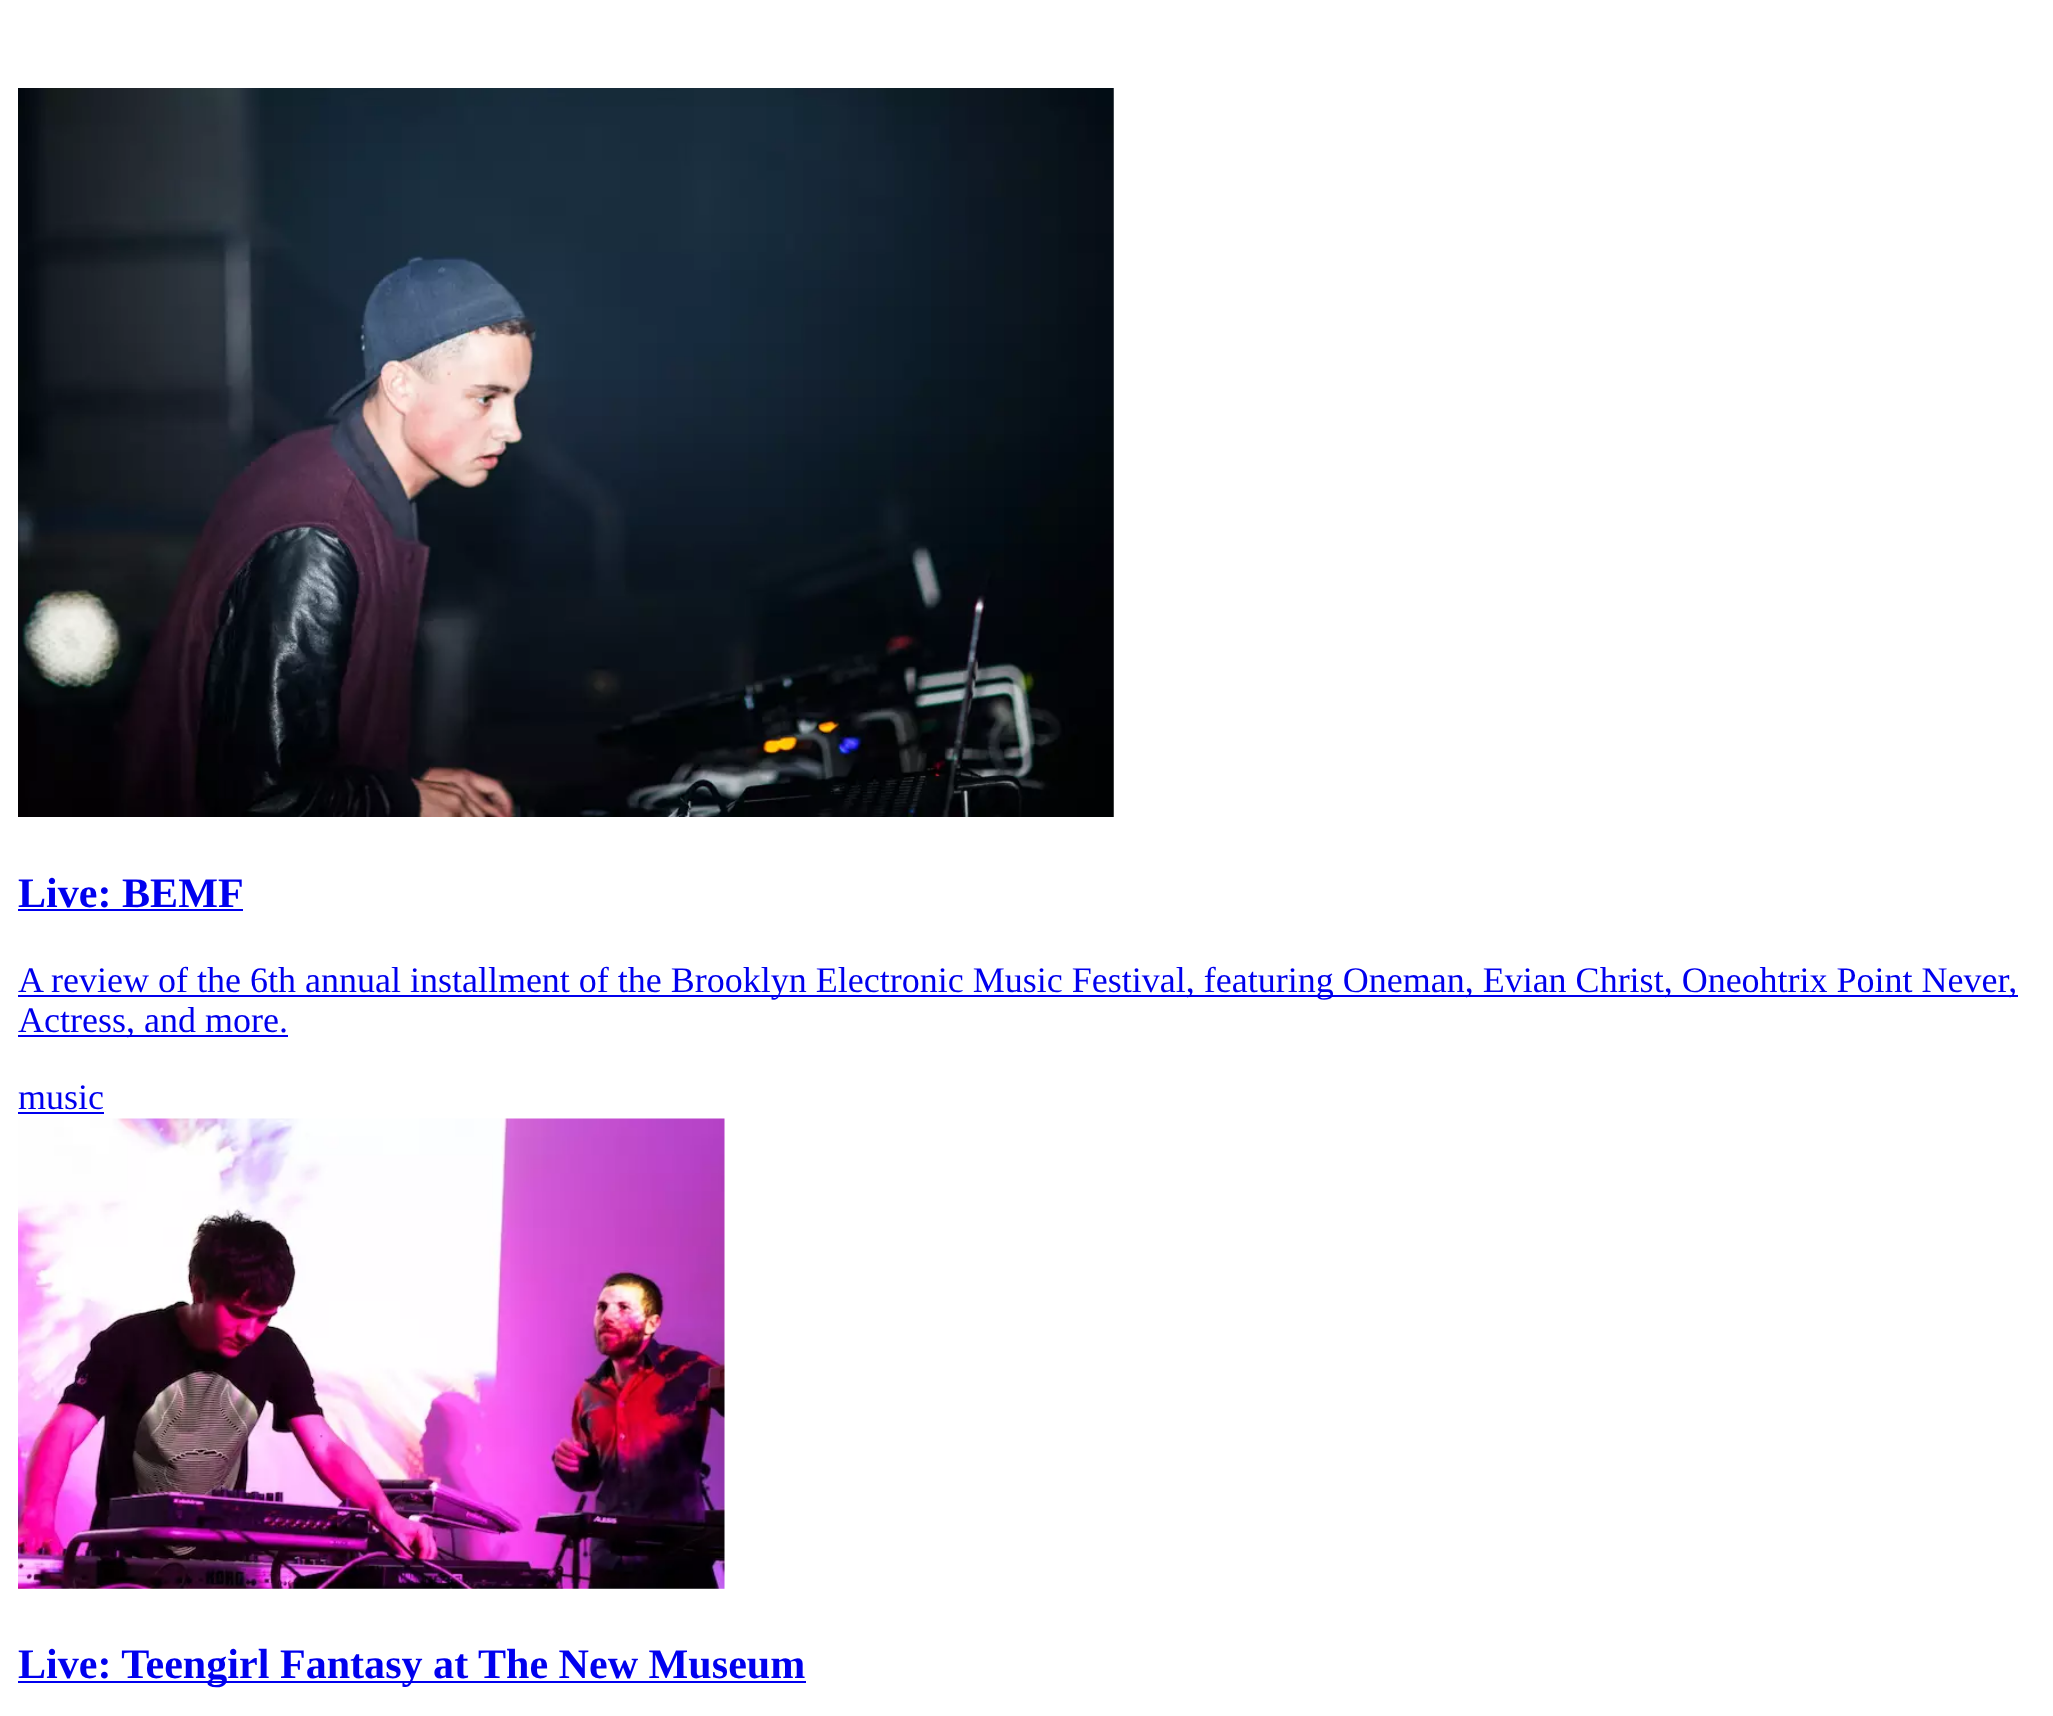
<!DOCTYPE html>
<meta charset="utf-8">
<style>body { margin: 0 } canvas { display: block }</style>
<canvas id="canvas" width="2053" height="1716"></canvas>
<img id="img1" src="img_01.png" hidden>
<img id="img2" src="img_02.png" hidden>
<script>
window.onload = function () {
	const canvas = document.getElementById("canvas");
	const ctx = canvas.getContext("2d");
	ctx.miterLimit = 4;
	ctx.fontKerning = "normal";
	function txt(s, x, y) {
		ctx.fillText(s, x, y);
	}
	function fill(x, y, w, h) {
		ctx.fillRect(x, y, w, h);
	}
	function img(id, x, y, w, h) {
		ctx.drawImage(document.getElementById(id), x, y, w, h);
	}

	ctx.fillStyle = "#FFFFFF";
	fill(0, 0, 2053, 1716);
	img("img1", 18, 88, 1096, 729);
	ctx.fillStyle = "#0000EE";
	fill(18, 909, 225, 2);
	fill(18, 995, 2000, 2);
	fill(18, 1035, 270, 2);
	fill(18, 1112, 86, 2);
	img("img2", 18, 1118, 707, 471);
	fill(18, 1681, 788, 2);
	ctx.font = "bold 42.1px Liberation Serif";
	txt("Live: BEMF", 18, 907);
	ctx.font = "36px Liberation Serif";
	txt("A review of the 6th annual installment of the Brooklyn Electronic Music Festival, featuring Oneman, Evian Christ, Oneohtrix Point Never,", 18, 992);
	txt("Actress, and more.", 18, 1032);
	txt("music", 18, 1109);
	ctx.font = "bold 42.1px Liberation Serif";
	txt("Live: Teengirl Fantasy at The New Museum", 18, 1678);
};
</script>
